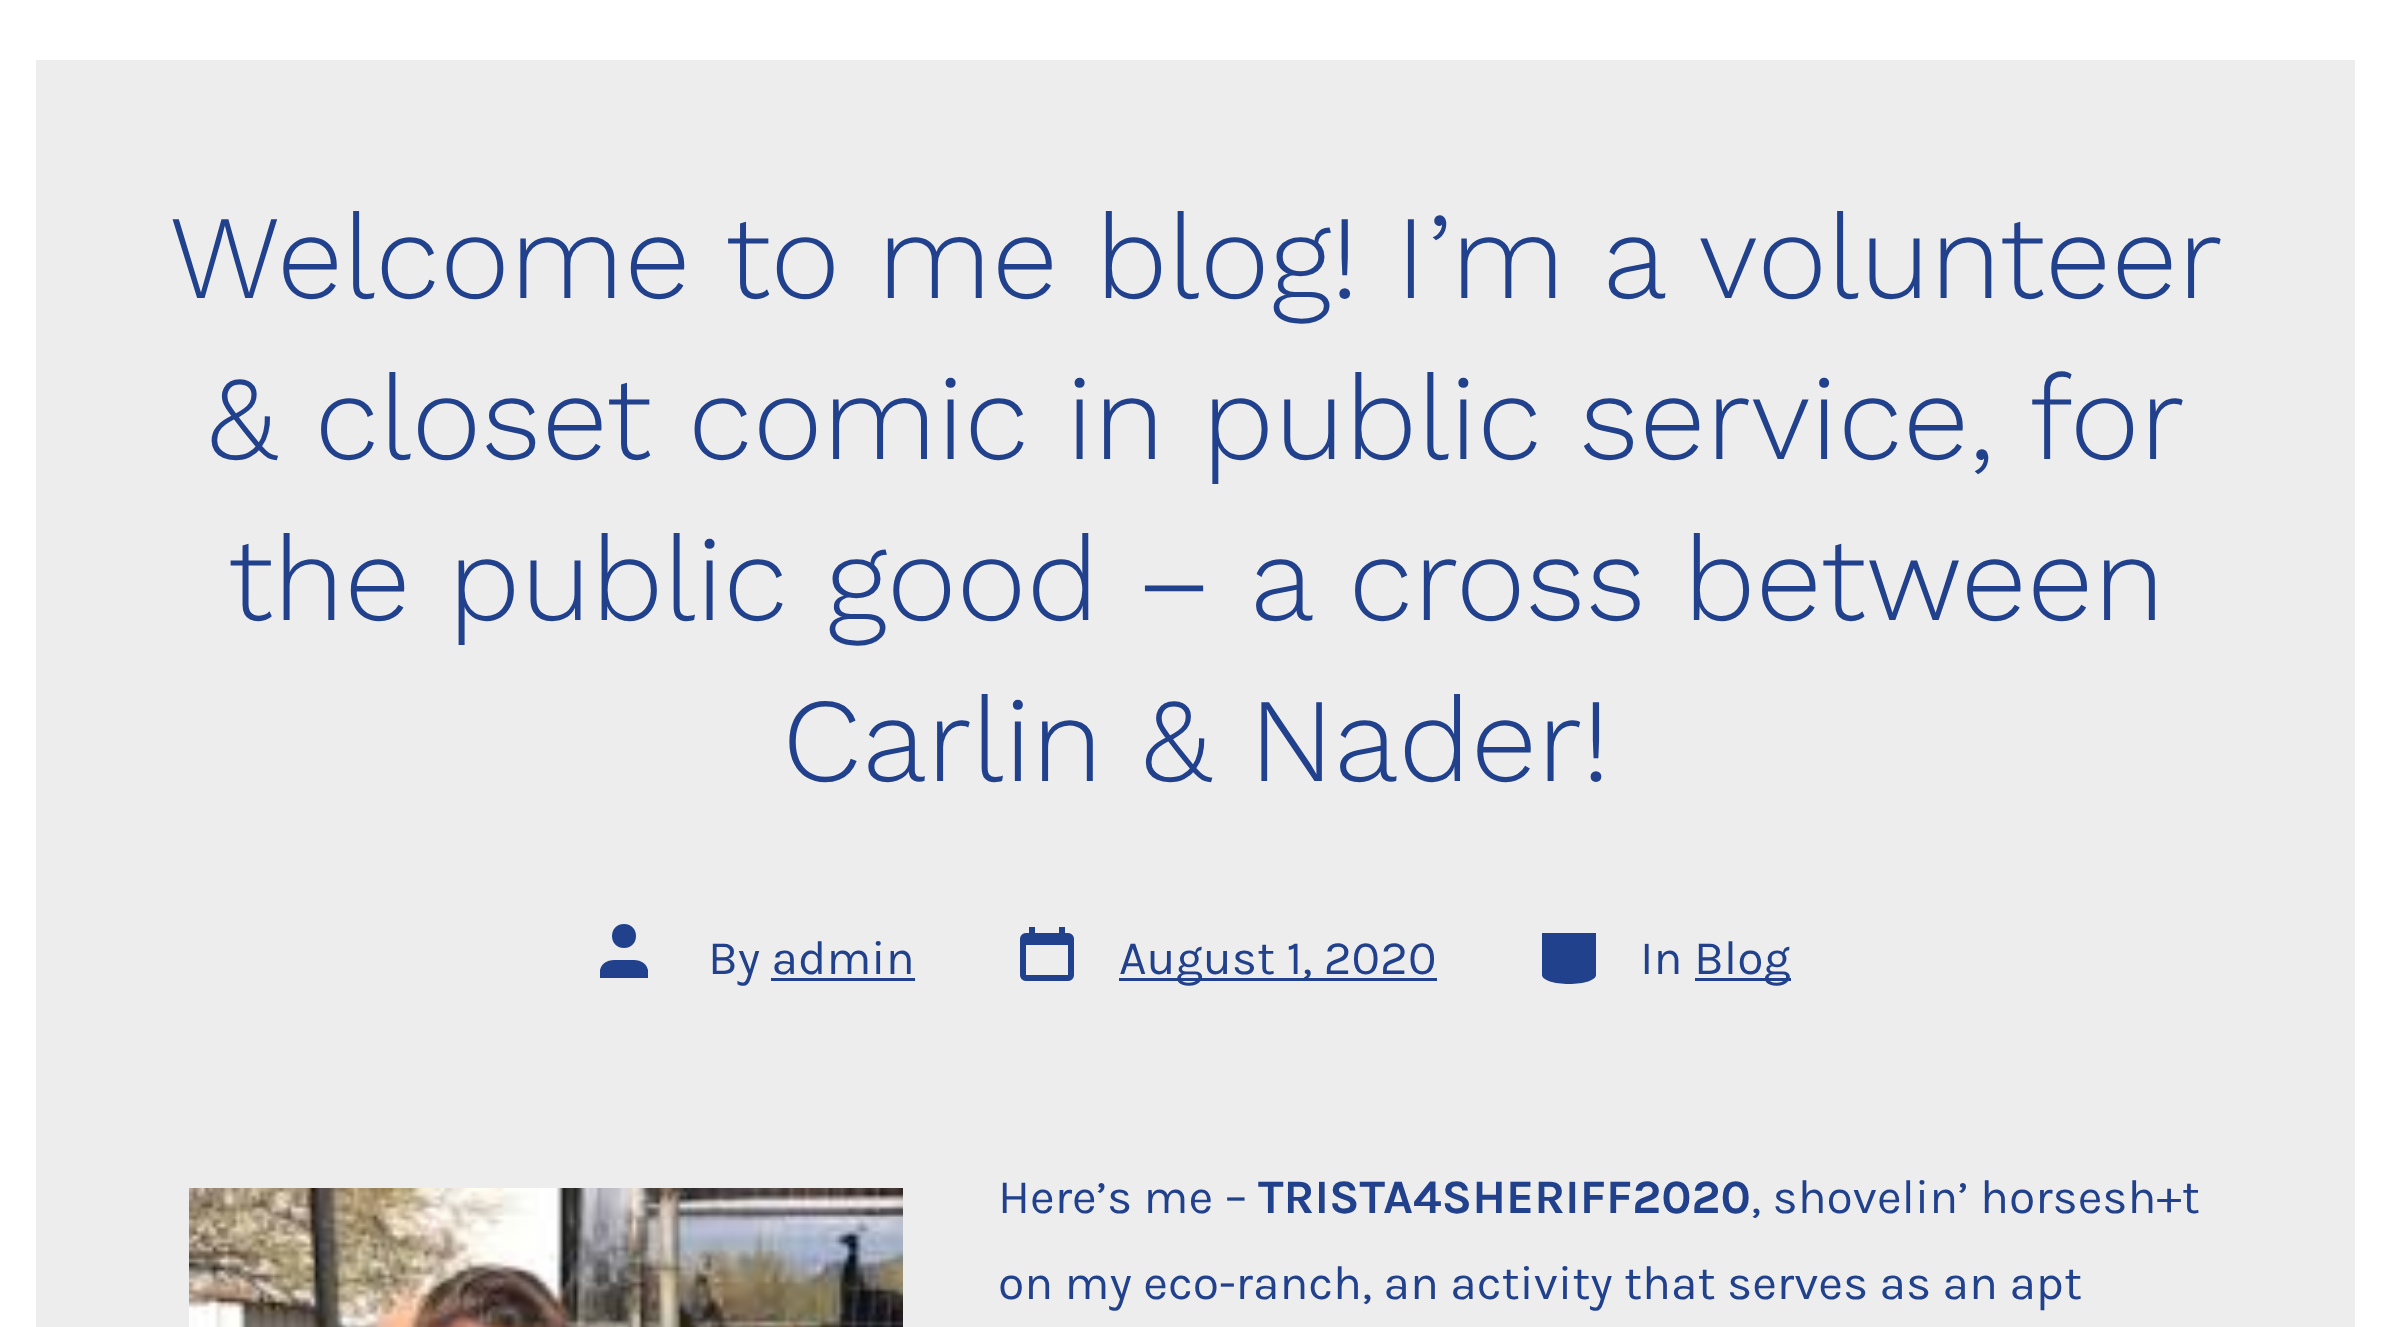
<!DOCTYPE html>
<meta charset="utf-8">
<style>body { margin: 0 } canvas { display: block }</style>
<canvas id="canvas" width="2391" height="1327"></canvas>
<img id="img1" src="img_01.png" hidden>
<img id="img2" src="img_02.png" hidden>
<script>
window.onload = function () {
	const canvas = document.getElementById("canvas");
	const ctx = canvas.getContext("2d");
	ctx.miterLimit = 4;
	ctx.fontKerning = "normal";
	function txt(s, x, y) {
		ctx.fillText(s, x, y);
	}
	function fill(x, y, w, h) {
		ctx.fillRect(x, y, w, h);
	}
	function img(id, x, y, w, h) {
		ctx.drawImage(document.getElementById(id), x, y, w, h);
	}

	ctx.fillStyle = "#EDEDED";
	fill(0, 0, 2391, 1327);
	ctx.fillStyle = "#FFFFFF";
	fill(2355, 0, 36, 1327);
	fill(0, 0, 36, 1327);
	fill(36, 0, 2319, 60);
	ctx.fillStyle = "#21418C";
	ctx.beginPath();
	ctx.moveTo(648, 978);
	ctx.lineTo(600, 978);
	ctx.lineTo(600, 970);
	ctx.bezierCurveTo(603, 958, 615, 960, 624, 960);
	ctx.bezierCurveTo(633, 960, 645, 958, 648, 970);
	ctx.closePath();
	ctx.moveTo(624, 948);
	ctx.bezierCurveTo(608, 948, 608, 924, 624, 924);
	ctx.bezierCurveTo(640, 924, 640, 948, 624, 948);
	ctx.closePath();
	ctx.fill();
	fill(771, 978, 144, 3);
	img("img1", 1020, 927, 54, 54);
	fill(1119, 978, 318, 3);
	ctx.beginPath();
	ctx.moveTo(1542, 933);
	ctx.lineTo(1542, 975);
	ctx.bezierCurveTo(1542, 980, 1554, 984, 1569, 984);
	ctx.bezierCurveTo(1584, 984, 1596, 980, 1596, 975);
	ctx.lineTo(1596, 933);
	ctx.fill();
	fill(1695, 978, 96, 3);
	img("img2", 189, 1188, 714, 139);
	ctx.wordSpacing = "-0.25px";
	ctx.font = "300 119.25px Work Sans";
	txt("Welcome to me blog! I’m a volunteer", 169, 298);
	txt("& closet comic in public service, for", 206, 459);
	ctx.wordSpacing = "0px";
	txt("the public good – a cross between", 228, 620);
	txt("Carlin & Nader!", 782, 781);
	ctx.font = "48px Karla";
	txt("By admin", 708, 974);
	txt("August 1, 2020", 1119, 974);
	txt("In", 1640, 974);
	txt("Blog", 1694, 974);
	txt("Here’s me –", 998, 1213);
	ctx.font = "bold 48px Karla";
	txt("TRISTA4SHERIFF2020", 1258, 1213);
	ctx.font = "48px Karla";
	txt(", shovelin’ horsesh+t", 1751, 1213);
	txt("on my eco-ranch, an activity that serves as an apt", 998, 1299);
};
</script>
